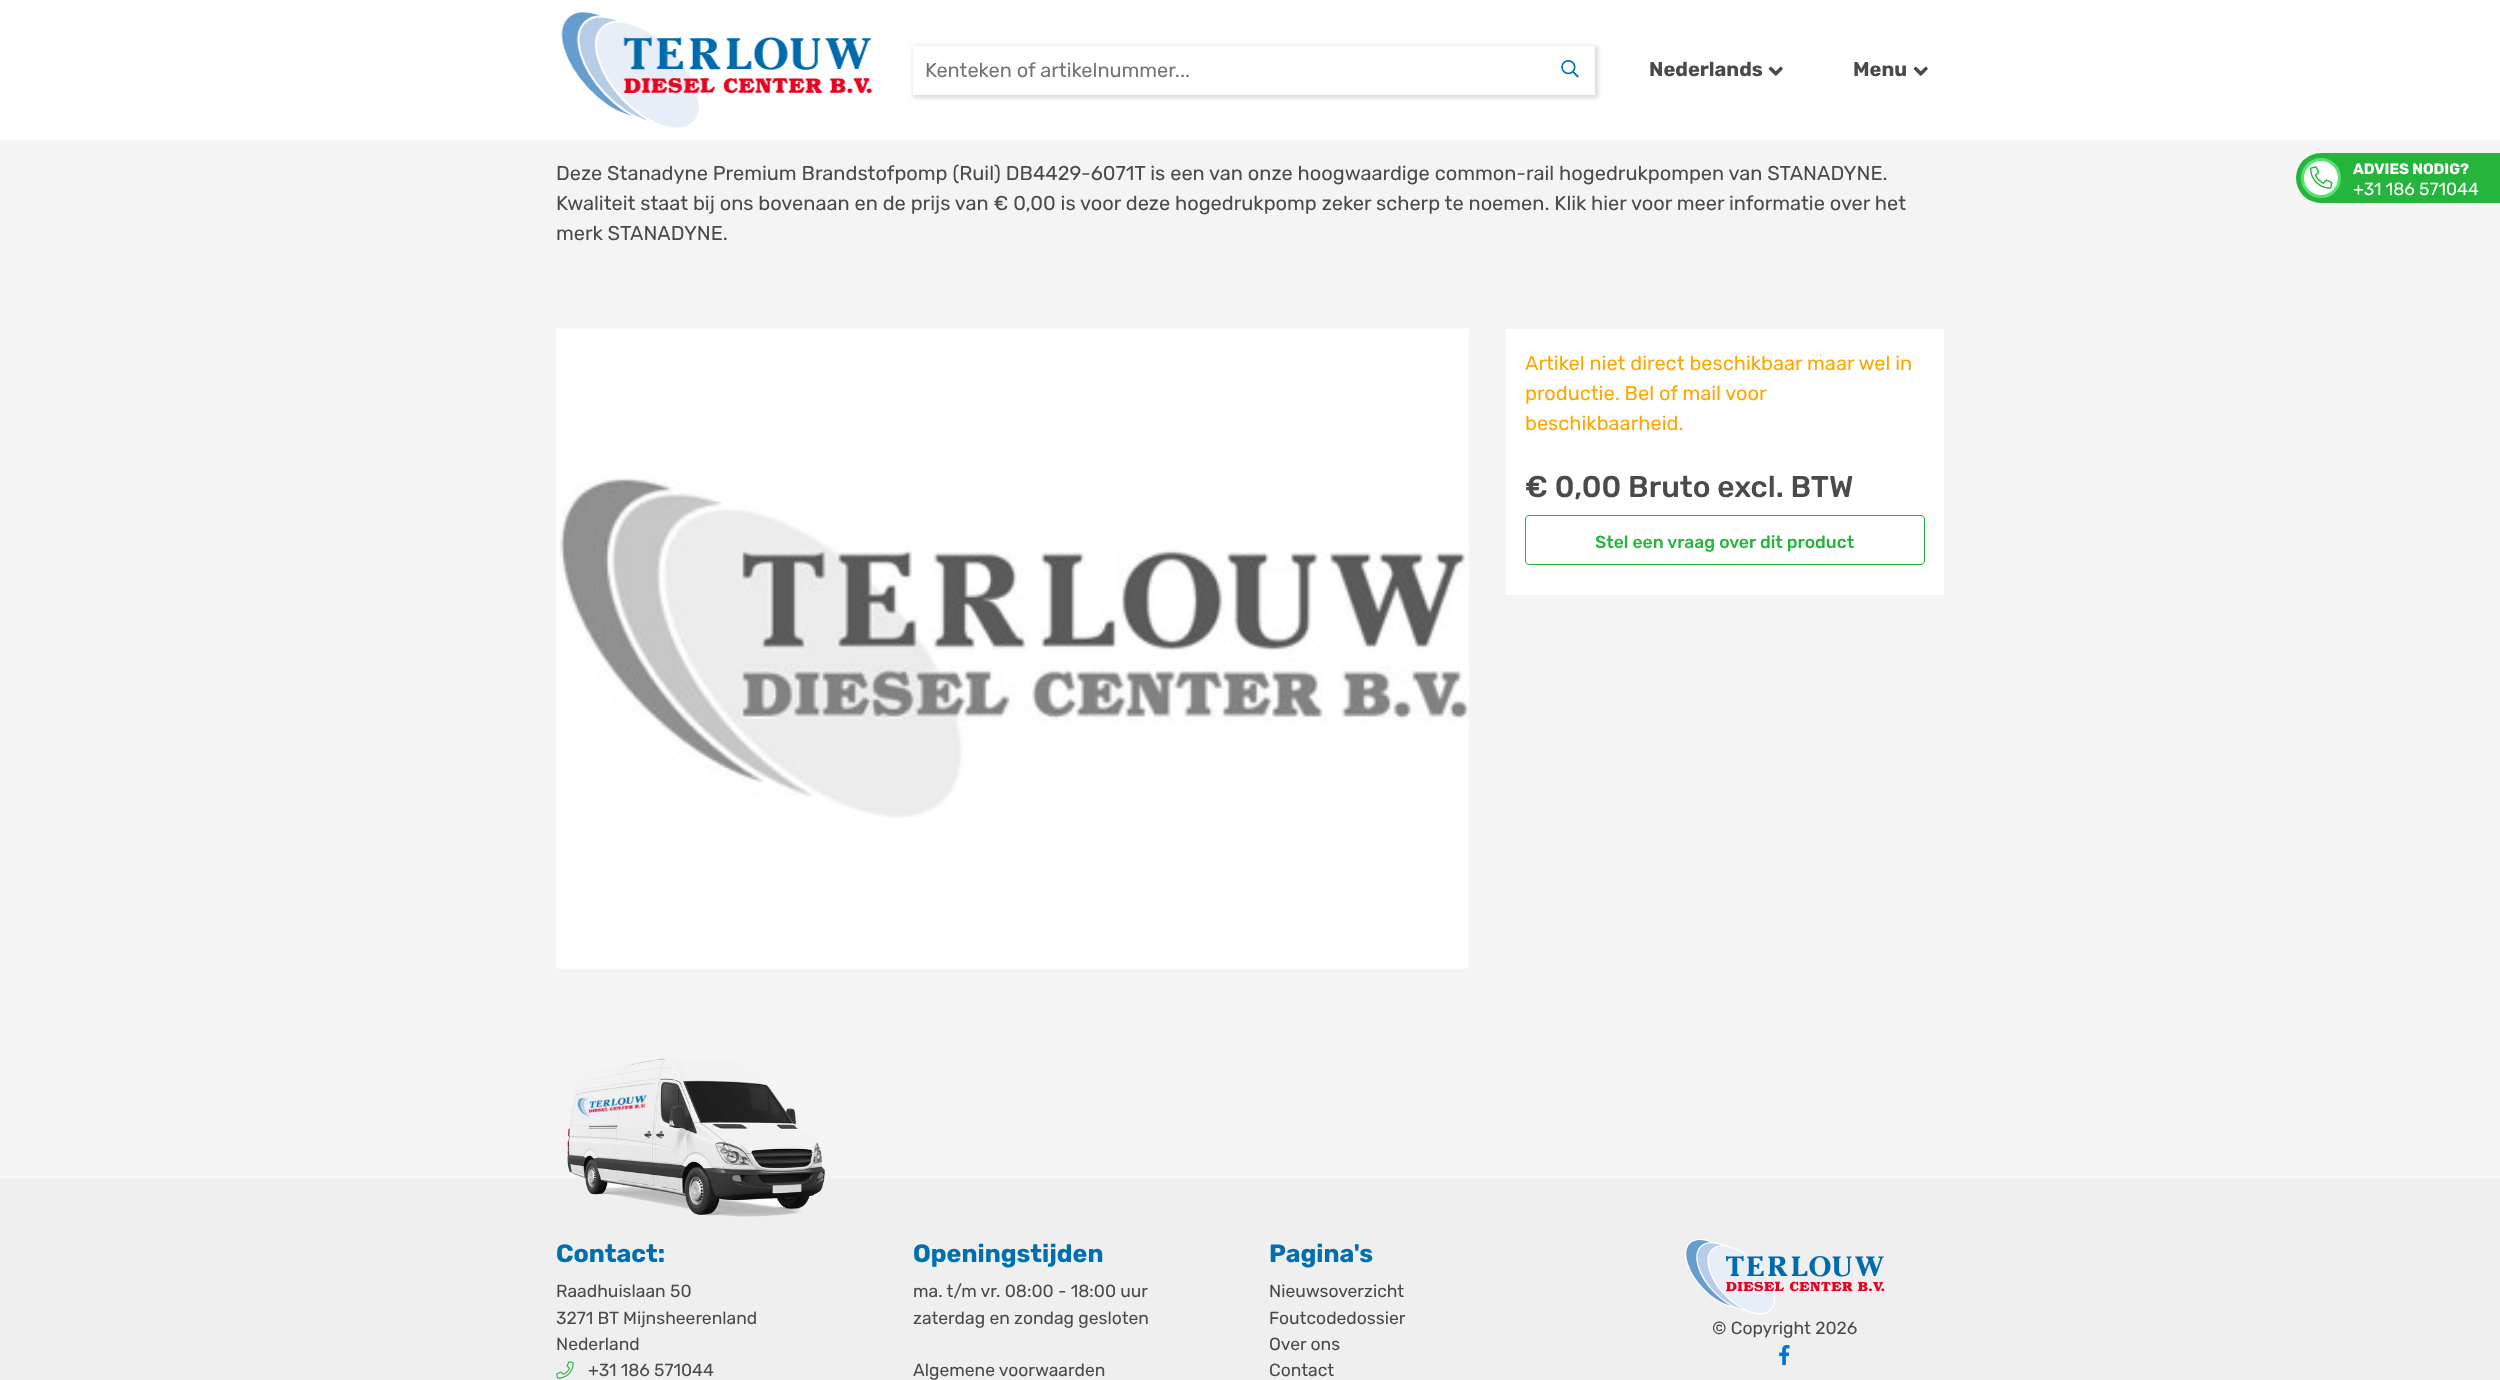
<!DOCTYPE html>
<meta charset="utf-8">
<style>body { margin: 0 } canvas { display: block }</style>
<canvas id="canvas" width="2500" height="1380"></canvas>
<img id="img1" src="img_01.png" hidden>
<img id="img2" src="img_02.png" hidden>
<img id="img3" src="img_03.png" hidden>
<img id="img4" src="img_04.png" hidden>
<img id="img5" src="img_05.png" hidden>
<img id="img6" src="img_06.png" hidden>
<img id="img7" src="img_07.png" hidden>
<img id="img8" src="img_08.png" hidden>
<img id="img9" src="img_09.png" hidden>
<script>
window.onload = function () {
	const canvas = document.getElementById("canvas");
	const ctx = canvas.getContext("2d");
	ctx.miterLimit = 4;
	ctx.fontKerning = "normal";
	function txt(s, x, y) {
		ctx.fillText(s, x, y);
	}
	function fill(x, y, w, h) {
		ctx.fillRect(x, y, w, h);
	}
	function img(id, x, y, w, h) {
		ctx.drawImage(document.getElementById(id), x, y, w, h);
	}

	ctx.fillStyle = "#F4F4F4";
	fill(0, 0, 2500, 1380);
	ctx.fillStyle = "#FFFFFF";
	fill(0, 0, 2500, 140);
	img("img1", 561, 12, 311, 116);
	ctx.fillStyle = "rgba(0, 0, 0, 0.15)";
	ctx.filter = "blur(2px)";
	ctx.beginPath();
	ctx.rect(913, 46, 685, 52);
	ctx.fill();
	ctx.filter = "none";
	ctx.fillStyle = "#FFFFFF";
	fill(913, 46, 682, 49);
	img("img2", 1561, 60, 18, 18);
	img("img3", 1768, 66, 15, 10);
	img("img3", 1913, 66, 15, 10);
	img("img4", 556, 328, 913, 641);
	fill(1506, 329, 438, 266);
	ctx.beginPath();
	ctx.roundRect(1525.5, 515.5, 399, 49, 3.5);
	ctx.strokeStyle = "#25B43C";
	ctx.stroke();
	ctx.fillStyle = "#25B43C";
	ctx.beginPath();
	ctx.roundRect(2296, 153, 204, 50, [25, 0, 0, 25]);
	ctx.fill();
	ctx.fillStyle = "#FFFFFF";
	ctx.beginPath();
	ctx.arc(2321, 178, 18.5, 0, Math.PI * 2);
	ctx.fill();
	ctx.strokeStyle = "#55E46C";
	ctx.lineWidth = 3;
	ctx.stroke();
	img("img5", 2310, 166, 23, 23);
	ctx.fillStyle = "#EFEFEF";
	fill(0, 1179, 2500, 201);
	img("img6", 567, 1058, 258, 159);
	img("img7", 556, 1361, 18, 18);
	img("img8", 1685, 1239, 200, 76);
	img("img9", 1779, 1345, 11, 20);
	ctx.font = "20px Rubik";
	ctx.fillStyle = "#757575";
	txt("Kenteken of artikelnummer...", 925, 77);
	ctx.font = "bold 20px Rubik";
	ctx.fillStyle = "#4A4A4A";
	txt("Nederlands", 1649, 76);
	txt("Menu", 1853, 76);
	ctx.font = "20px Rubik";
	txt("Deze Stanadyne Premium Brandstofpomp (Ruil) DB4429-6071T is een van onze hoogwaardige common-rail hogedrukpompen van STANADYNE.", 556, 180);
	txt("Kwaliteit staat bij ons bovenaan en de prijs van € 0,00 is voor deze hogedrukpomp zeker scherp te noemen. Klik hier", 556, 210);
	txt("voor meer informatie over het", 1631, 210);
	txt("merk STANADYNE.", 556, 240);
	ctx.fillStyle = "#FFA500";
	txt("Artikel niet direct beschikbaar maar wel in", 1525, 370);
	txt("productie. Bel of mail voor", 1525, 400);
	txt("beschikbaarheid.", 1525, 430);
	ctx.font = "500 30px Rubik";
	ctx.fillStyle = "#4A4A4A";
	txt("€ 0,00 Bruto excl. BTW", 1525, 497);
	ctx.font = "500 17.5px Rubik";
	ctx.fillStyle = "#25B43C";
	txt("Stel een vraag over dit product", 1595, 548);
	ctx.font = "bold 15px Rubik";
	ctx.fillStyle = "#FFFFFF";
	txt("ADVIES NODIG?", 2353, 174);
	ctx.font = "17.5px Rubik";
	txt("+31 186 571044", 2353, 195);
	ctx.font = "bold 25px Rubik";
	ctx.fillStyle = "#006FAF";
	txt("Contact:", 556, 1262);
	ctx.font = "17.5px Rubik";
	ctx.fillStyle = "#4A4A4A";
	txt("Raadhuislaan 50", 556, 1297);
	txt("3271 BT Mijnsheerenland", 556, 1324);
	txt("Nederland", 556, 1350);
	txt("+31 186 571044", 588, 1376);
	ctx.font = "bold 25px Rubik";
	ctx.fillStyle = "#006FAF";
	txt("Openingstijden", 913, 1262);
	ctx.font = "17.5px Rubik";
	ctx.fillStyle = "#4A4A4A";
	txt("ma. t/m vr. 08:00 - 18:00 uur", 913, 1297);
	txt("zaterdag en zondag gesloten", 913, 1324);
	txt("Algemene voorwaarden", 913, 1376);
	ctx.font = "bold 25px Rubik";
	ctx.fillStyle = "#006FAF";
	txt("Pagina's", 1269, 1262);
	ctx.font = "17.5px Rubik";
	ctx.fillStyle = "#4A4A4A";
	txt("Nieuwsoverzicht", 1269, 1297);
	txt("Foutcodedossier", 1269, 1324);
	txt("Over ons", 1269, 1350);
	txt("Contact", 1269, 1376);
	txt("© Copyright 2026", 1712, 1334);
};
</script>
